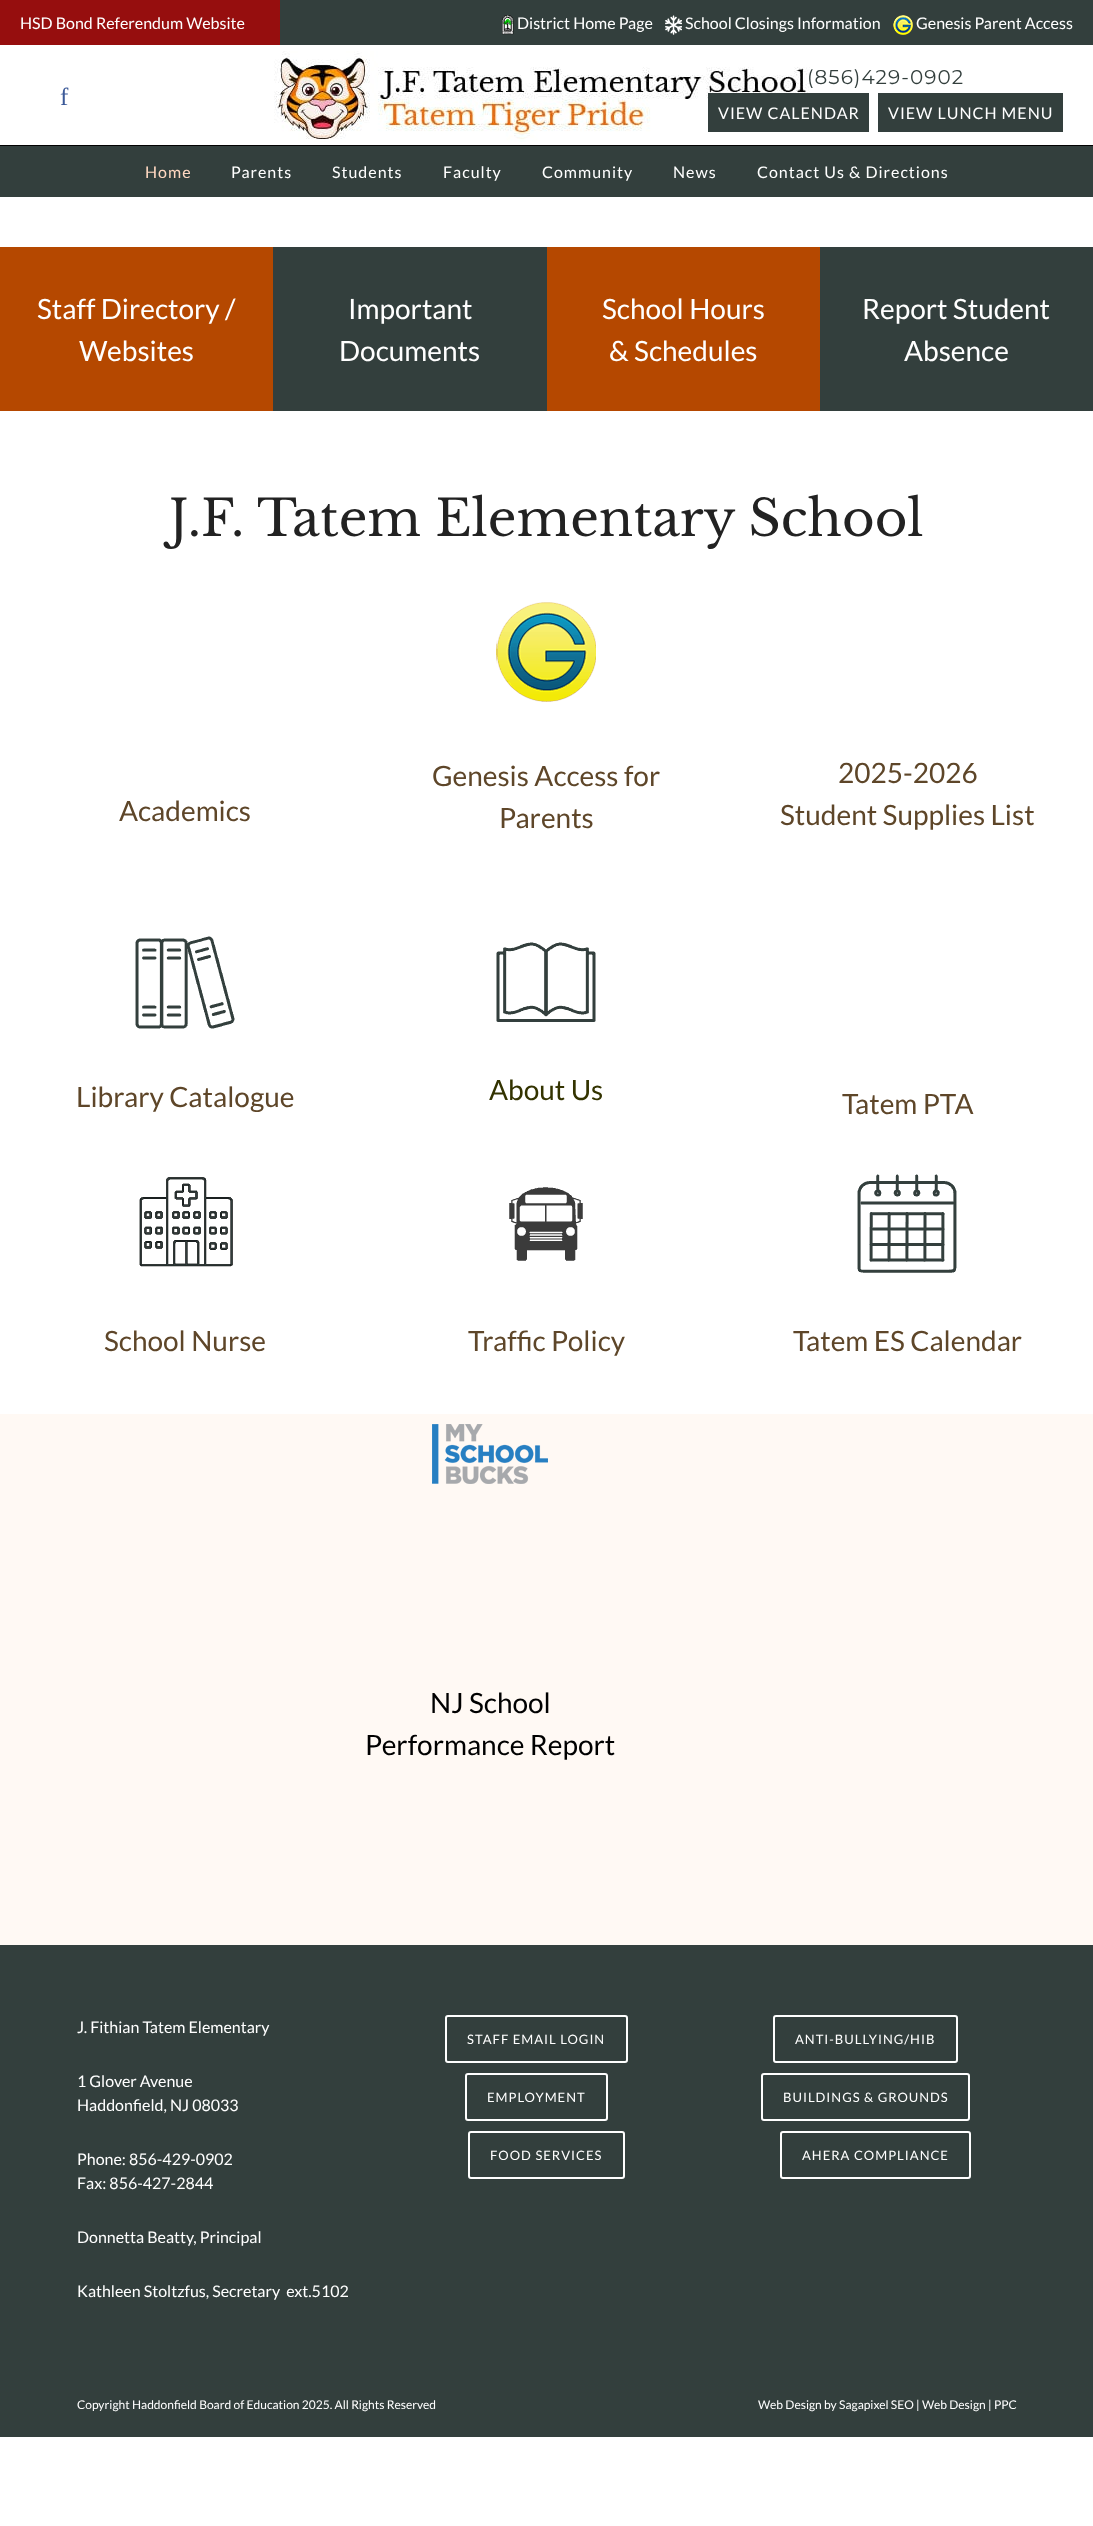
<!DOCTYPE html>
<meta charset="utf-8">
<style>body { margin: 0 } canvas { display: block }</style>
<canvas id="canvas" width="1093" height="2526"></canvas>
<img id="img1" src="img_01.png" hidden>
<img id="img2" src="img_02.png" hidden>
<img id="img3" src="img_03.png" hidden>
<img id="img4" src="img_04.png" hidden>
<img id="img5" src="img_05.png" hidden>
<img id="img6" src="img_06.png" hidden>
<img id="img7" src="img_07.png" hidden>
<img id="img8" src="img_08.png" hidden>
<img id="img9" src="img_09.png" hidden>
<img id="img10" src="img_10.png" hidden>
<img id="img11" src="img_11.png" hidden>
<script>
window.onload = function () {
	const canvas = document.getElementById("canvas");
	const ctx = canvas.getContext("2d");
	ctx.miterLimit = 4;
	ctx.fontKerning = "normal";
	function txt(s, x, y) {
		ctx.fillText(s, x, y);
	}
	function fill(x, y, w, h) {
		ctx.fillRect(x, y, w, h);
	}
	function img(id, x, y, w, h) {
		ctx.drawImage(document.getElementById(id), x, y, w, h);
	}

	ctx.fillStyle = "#FFFFFF";
	fill(0, 0, 1093, 2526);
	ctx.fillStyle = "#333F3D";
	fill(280, 0, 813, 45);
	ctx.fillStyle = "#960E0E";
	fill(0, 0, 280, 45);
	img("img1", 502, 15, 12, 20);
	img("img2", 665, 15, 17, 20);
	img("img3", 893, 15, 20, 20);
	img("img4", 274, 51, 536, 91);
	ctx.fillStyle = "#333F3D";
	fill(708, 93, 161, 39);
	fill(878, 93, 185, 39);
	ctx.fillStyle = "#020202";
	fill(0, 145, 1093, 1);
	ctx.fillStyle = "#333F3D";
	fill(0, 146, 1093, 51);
	ctx.fillStyle = "#B54800";
	fill(0, 247, 273, 164);
	ctx.fillStyle = "#333F3D";
	fill(273, 247, 274, 164);
	ctx.fillStyle = "#B54800";
	fill(547, 247, 273, 164);
	ctx.fillStyle = "#333F3D";
	fill(820, 247, 273, 164);
	img("img5", 496, 602, 100, 100);
	img("img6", 135, 936, 100, 93);
	img("img7", 496, 942, 100, 80);
	img("img8", 139, 1177, 94, 90);
	img("img9", 509, 1187, 74, 74);
	img("img10", 857, 1174, 100, 99);
	ctx.fillStyle = "#FFF9F4";
	fill(0, 1414, 1093, 531);
	img("img11", 432, 1424, 116, 60);
	ctx.fillStyle = "#333F3D";
	fill(0, 1945, 1093, 492);
	ctx.beginPath();
	ctx.roundRect(446, 2016, 181, 46, 2);
	ctx.strokeStyle = "#FFFFFF";
	ctx.lineWidth = 2;
	ctx.stroke();
	ctx.beginPath();
	ctx.roundRect(466, 2074, 141, 46, 2);
	ctx.stroke();
	ctx.beginPath();
	ctx.roundRect(469, 2132, 155, 46, 2);
	ctx.stroke();
	ctx.beginPath();
	ctx.roundRect(774, 2016, 183, 46, 2);
	ctx.stroke();
	ctx.beginPath();
	ctx.roundRect(762, 2074, 207, 46, 2);
	ctx.stroke();
	ctx.beginPath();
	ctx.roundRect(781, 2132, 189, 46, 2);
	ctx.stroke();
	ctx.font = "16px Lato";
	ctx.fillStyle = "#FFFFFF";
	txt("HSD Bond Referendum Website", 20, 29);
	txt("District Home Page", 517, 29);
	txt("School Closings Information", 685, 29);
	txt("Genesis Parent Access", 916, 29);
	ctx.letterSpacing = "1px";
	ctx.font = "25px Liberation Serif";
	ctx.fillStyle = "#3B5998";
	txt("f", 60, 105);
	ctx.font = "20px Montserrat";
	ctx.fillStyle = "#333F3D";
	txt("(856)429-0902", 807, 84);
	ctx.font = "16px Lato";
	ctx.fillStyle = "#FFFFFF";
	txt("VIEW CALENDAR", 718, 119);
	txt("VIEW LUNCH MENU", 888, 119);
	ctx.fillStyle = "#FFD8C1";
	txt("Home", 145, 178);
	ctx.fillStyle = "#FFFFFF";
	txt("Parents", 231, 178);
	txt("Students", 332, 178);
	txt("Faculty", 443, 178);
	txt("Community", 542, 178);
	txt("News", 673, 178);
	txt("Contact Us & Directions", 757, 178);
	ctx.letterSpacing = "0px";
	ctx.font = "28px Lato";
	txt("Staff Directory /", 37, 319);
	txt("Websites", 79, 361);
	txt("Important", 348, 319);
	txt("Documents", 339, 361);
	txt("School Hours", 602, 319);
	txt("& Schedules", 609, 361);
	txt("Report Student", 862, 319);
	txt("Absence", 904, 361);
	ctx.font = "50px Libre Baskerville";
	ctx.fillStyle = "#222222";
	txt("J.F. Tatem Elementary School", 169, 536);
	ctx.font = "28px Lato";
	ctx.fillStyle = "#5E4629";
	txt("Academics", 119, 821);
	txt("Genesis Access for", 432, 786);
	txt("Parents", 499, 828);
	txt("2025-2026", 838, 783);
	txt("Student Supplies List", 780, 825);
	txt("Library Catalogue", 76, 1107);
	ctx.fillStyle = "#333300";
	txt("About Us", 489, 1100);
	ctx.fillStyle = "#5E4629";
	txt("Tatem PTA", 842, 1114);
	txt("School Nurse", 104, 1351);
	txt("Traffic Policy", 468, 1351);
	txt("Tatem ES Calendar", 793, 1351);
	ctx.fillStyle = "#000000";
	txt("NJ School", 430, 1713);
	txt("Performance Report", 365, 1755);
	ctx.font = "16px Lato";
	ctx.fillStyle = "#FFFFFF";
	txt("J. Fithian Tatem Elementary", 77, 2033);
	txt("1 Glover Avenue", 77, 2087);
	txt("Haddonfield, NJ 08033", 77, 2111);
	txt("Phone: 856-429-0902", 77, 2165);
	txt("Fax: 856-427-2844", 77, 2189);
	txt("Donnetta Beatty, Principal", 77, 2243);
	txt("Kathleen Stoltzfus, Secretary  ext.5102", 77, 2297);
	ctx.letterSpacing = "1px";
	ctx.font = "13px Lato";
	txt("STAFF EMAIL LOGIN", 467, 2044);
	txt("EMPLOYMENT", 487, 2102);
	txt("FOOD SERVICES", 490, 2160);
	txt("ANTI-BULLYING/HIB", 795, 2044);
	txt("BUILDINGS & GROUNDS", 783, 2102);
	txt("AHERA COMPLIANCE", 802, 2160);
	ctx.letterSpacing = "0px";
	ctx.font = "12px Lato";
	txt("Copyright Haddonfield Board of Education 2025. All Rights Reserved", 77, 2409);
	txt("Web Design by Sagapixel SEO | Web Design | PPC", 758, 2409);
};
</script>
